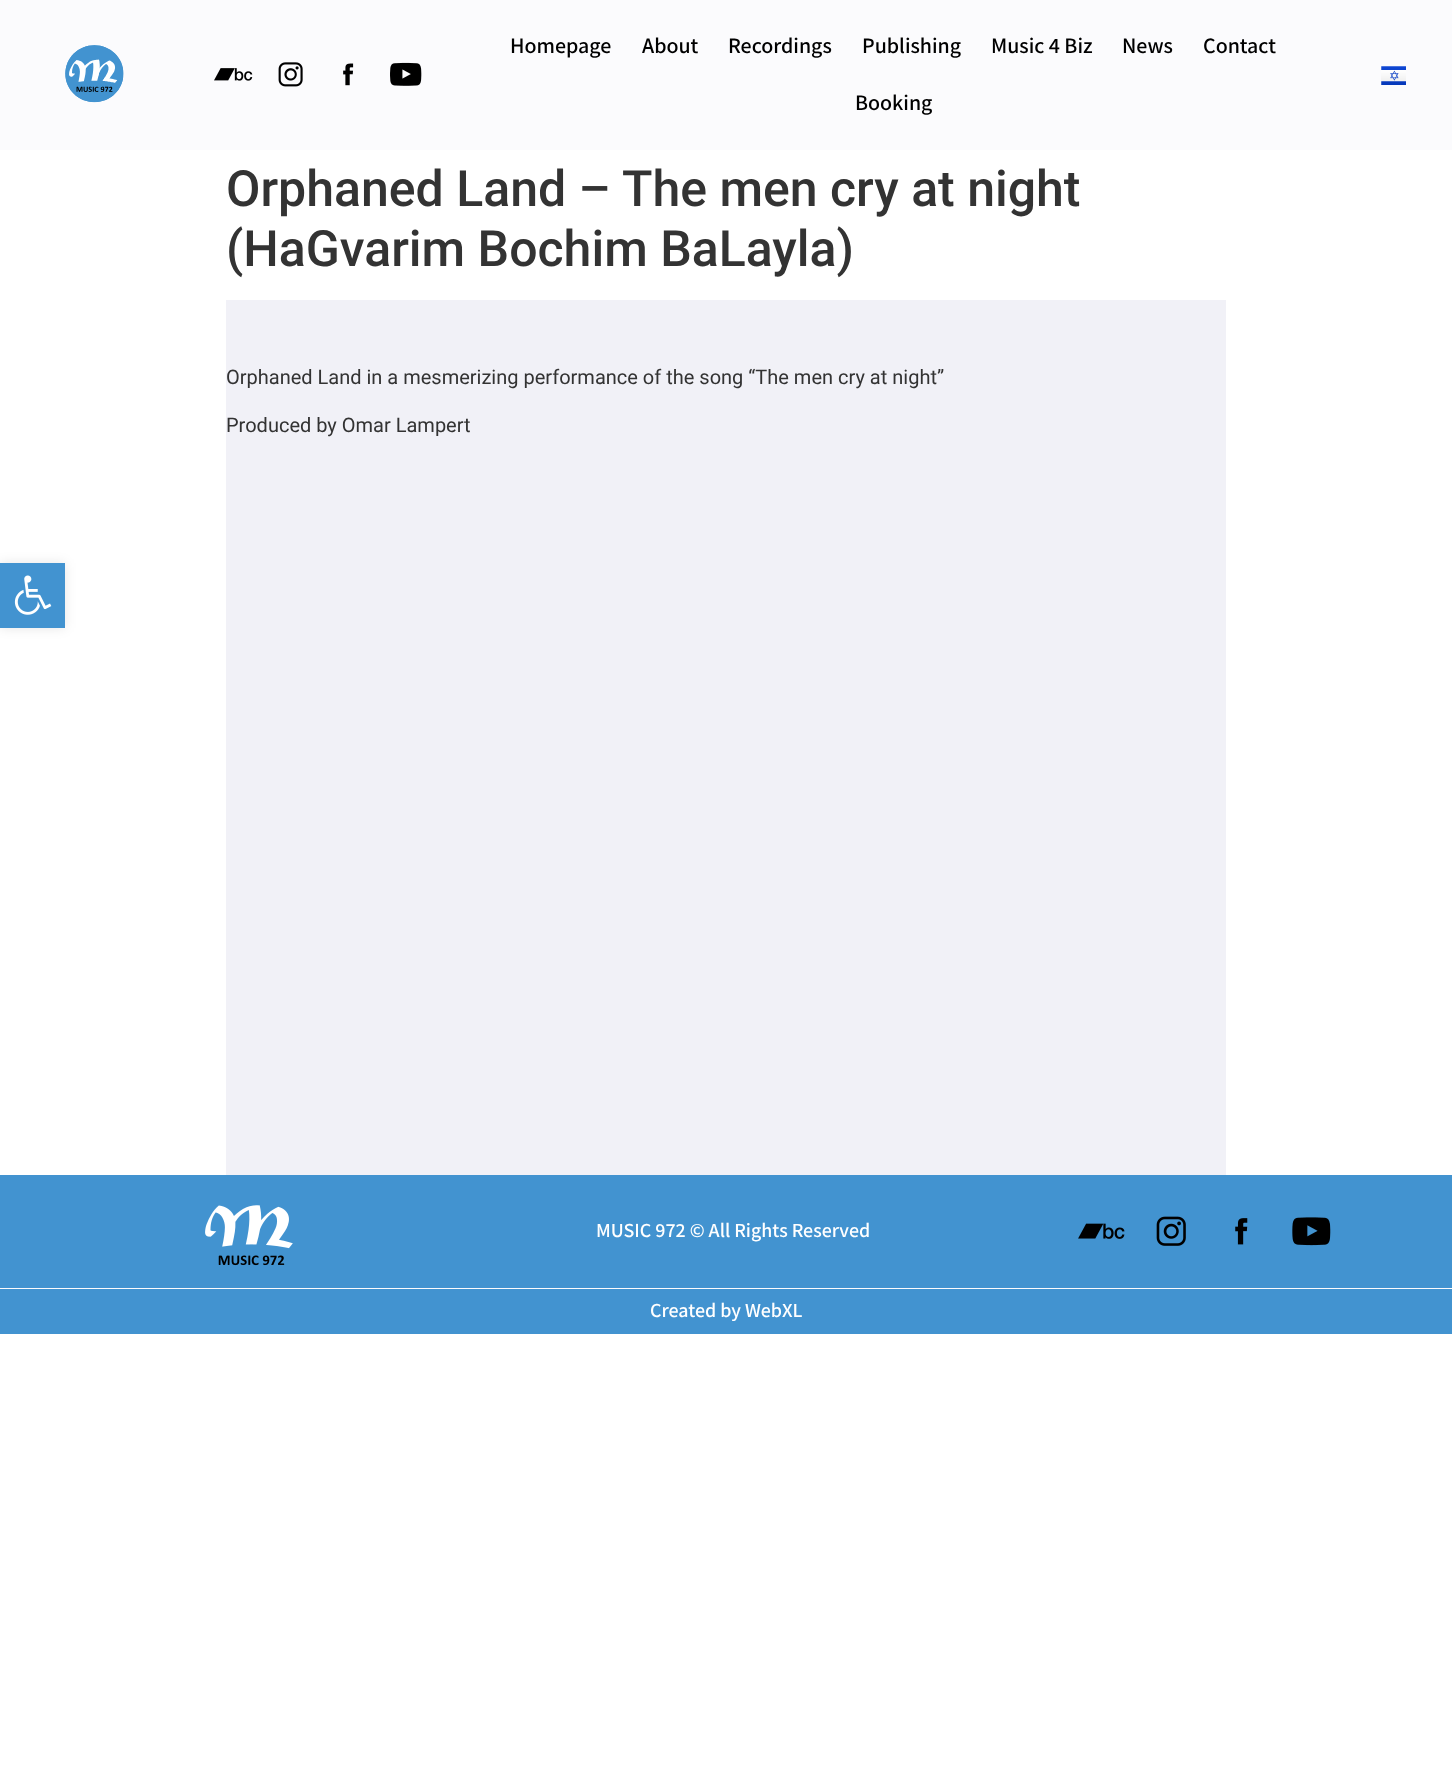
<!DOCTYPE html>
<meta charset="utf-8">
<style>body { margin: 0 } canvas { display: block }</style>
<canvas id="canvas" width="1452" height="1765"></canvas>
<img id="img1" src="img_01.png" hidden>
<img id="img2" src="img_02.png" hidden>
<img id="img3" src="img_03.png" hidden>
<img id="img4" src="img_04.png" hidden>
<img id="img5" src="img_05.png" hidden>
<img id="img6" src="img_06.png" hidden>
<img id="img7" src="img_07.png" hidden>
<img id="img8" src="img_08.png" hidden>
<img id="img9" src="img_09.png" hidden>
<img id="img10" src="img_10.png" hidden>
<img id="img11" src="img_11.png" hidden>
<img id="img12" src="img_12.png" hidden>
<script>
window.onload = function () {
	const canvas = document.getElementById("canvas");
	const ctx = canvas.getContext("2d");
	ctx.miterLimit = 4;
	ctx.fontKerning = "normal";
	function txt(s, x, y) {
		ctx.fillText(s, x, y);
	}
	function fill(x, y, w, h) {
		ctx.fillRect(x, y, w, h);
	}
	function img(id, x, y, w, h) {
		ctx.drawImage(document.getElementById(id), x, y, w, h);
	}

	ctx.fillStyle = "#FFFFFF";
	fill(0, 0, 1452, 1765);
	ctx.fillStyle = "#FBFBFD";
	fill(0, 0, 1452, 150);
	img("img1", 65, 45, 59, 58);
	img("img2", 214, 68, 39, 13);
	img("img3", 278, 62, 25, 25);
	img("img4", 343, 63, 11, 23);
	img("img5", 390, 62, 32, 24);
	img("img6", 1381, 66, 25, 19);
	ctx.fillStyle = "#F1F1F7";
	fill(226, 300, 1000, 875);
	ctx.fillStyle = "rgba(0, 0, 0, 0.1)";
	ctx.filter = "blur(6px)";
	ctx.beginPath();
	ctx.rect(0, 563, 65, 65);
	ctx.fill();
	ctx.filter = "none";
	ctx.fillStyle = "#4293D0";
	fill(0, 563, 65, 65);
	img("img7", 14, 575, 38, 40);
	fill(0, 1175, 1452, 113);
	img("img8", 205, 1205, 88, 61);
	img("img9", 1078, 1223, 47, 16);
	img("img10", 1156, 1216, 30, 30);
	img("img11", 1235, 1218, 13, 27);
	img("img12", 1292, 1217, 39, 29);
	fill(0, 1289, 1452, 45);
	ctx.fillStyle = "#FBFBFD";
	fill(0, 1288, 1452, 1);
	ctx.font = "600 22px Assistant";
	ctx.fillStyle = "#000000";
	txt("Homepage", 510, 53);
	txt("About", 642, 53);
	txt("Recordings", 728, 53);
	txt("Publishing", 862, 53);
	txt("Music 4 Biz", 991, 53);
	txt("News", 1122, 53);
	txt("Contact", 1203, 53);
	txt("Booking", 855, 110);
	ctx.font = "500 50px Roboto";
	ctx.fillStyle = "#333333";
	txt("Orphaned Land – The men cry at night", 226, 206);
	txt("(HaGvarim Bochim BaLayla)", 226, 266);
	ctx.font = "20px Roboto";
	txt("Orphaned Land in a mesmerizing performance of the song “The men cry at night”", 226, 384);
	txt("Produced by Omar Lampert", 226, 432);
	ctx.font = "600 20px Assistant";
	ctx.fillStyle = "#FFFFFF";
	txt("MUSIC 972 © All Rights Reserved", 596, 1237);
	txt("Created by WebXL", 650, 1317);
};
</script>
